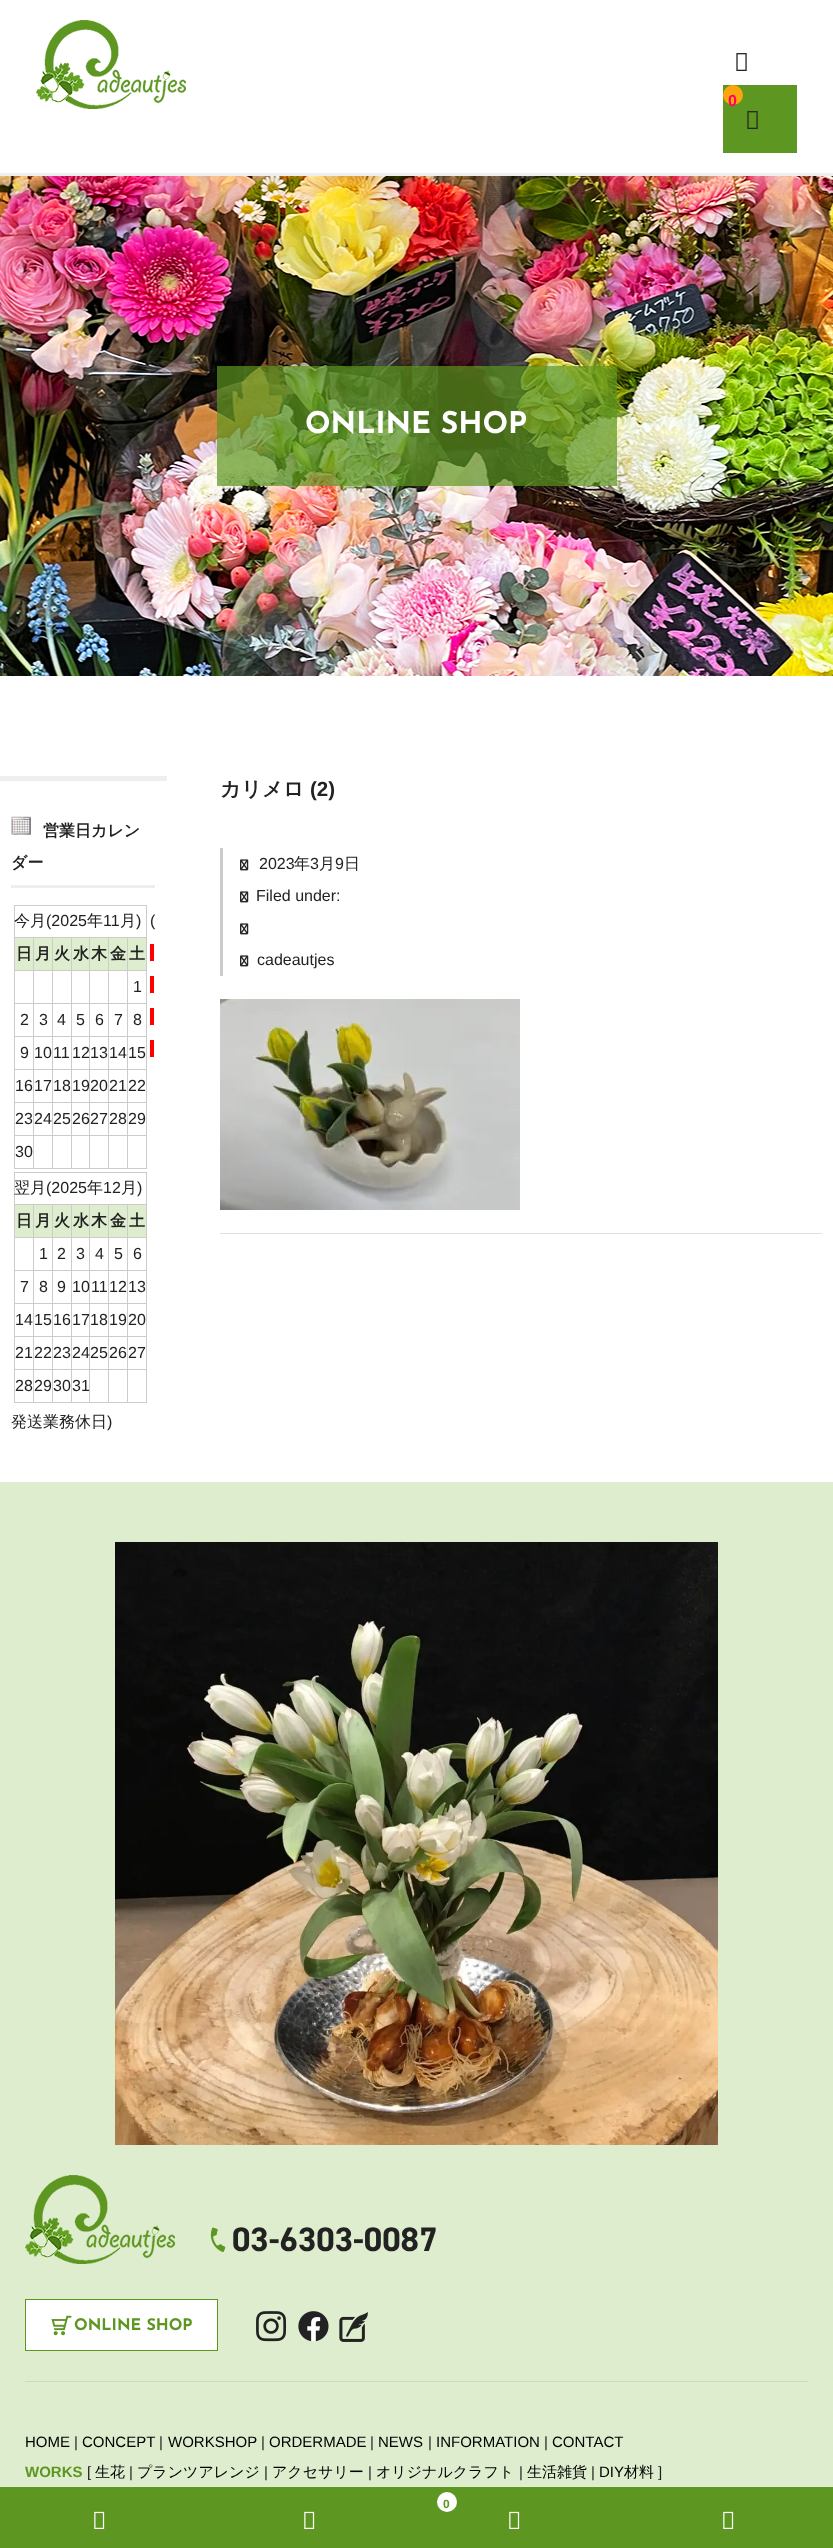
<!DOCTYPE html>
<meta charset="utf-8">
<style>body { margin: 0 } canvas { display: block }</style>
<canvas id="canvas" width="833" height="2548"></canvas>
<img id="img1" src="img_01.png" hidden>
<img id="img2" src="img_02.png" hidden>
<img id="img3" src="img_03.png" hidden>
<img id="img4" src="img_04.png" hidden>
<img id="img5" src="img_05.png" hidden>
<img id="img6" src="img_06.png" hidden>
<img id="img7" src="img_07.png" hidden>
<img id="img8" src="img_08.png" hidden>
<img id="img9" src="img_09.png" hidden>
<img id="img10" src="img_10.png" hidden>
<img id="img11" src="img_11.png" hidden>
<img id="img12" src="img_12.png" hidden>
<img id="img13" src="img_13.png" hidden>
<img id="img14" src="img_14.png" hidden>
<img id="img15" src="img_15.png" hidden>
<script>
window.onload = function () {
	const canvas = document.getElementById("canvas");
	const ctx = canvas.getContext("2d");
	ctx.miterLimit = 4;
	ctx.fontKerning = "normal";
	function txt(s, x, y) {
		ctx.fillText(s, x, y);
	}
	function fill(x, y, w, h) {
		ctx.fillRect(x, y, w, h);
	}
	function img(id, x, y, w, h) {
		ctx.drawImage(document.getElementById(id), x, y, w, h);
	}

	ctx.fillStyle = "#FFFFFF";
	fill(0, 0, 833, 2548);
	ctx.fillStyle = "#EFEFEF";
	fill(0, 173, 833, 3);
	img("img1", 36, 20, 150, 89);
	img("img2", 736, 53, 11, 18);
	ctx.fillStyle = "#5D9620";
	fill(723, 85, 74, 68);
	ctx.fillStyle = "#FBA60D";
	ctx.beginPath();
	ctx.arc(733, 95, 10, 0, Math.PI * 2);
	ctx.fill();
	img("img3", 747, 111, 11, 18);
	img("img4", 0, 176, 833, 500);
	ctx.fillStyle = "rgba(93, 150, 32, 0.7)";
	fill(217, 366, 400, 120);
	ctx.fillStyle = "#EEEEEE";
	fill(0, 776, 167, 5);
	fill(11, 885, 144, 3);
	img("img5", 11, 816, 20, 19);
	ctx.fillStyle = "#CCCCCC";
	fill(14, 905, 133, 1);
	fill(146, 905, 1, 264);
	fill(14, 1168, 133, 1);
	fill(14, 905, 1, 264);
	ctx.fillStyle = "#DEEDCE";
	fill(15, 938, 18, 32);
	ctx.fillStyle = "#CCCCCC";
	fill(127, 937, 20, 1);
	fill(127, 970, 20, 1);
	fill(127, 1003, 20, 1);
	fill(127, 1036, 20, 1);
	fill(127, 1069, 20, 1);
	fill(127, 1102, 20, 1);
	fill(127, 1135, 20, 1);
	fill(127, 1135, 1, 34);
	fill(108, 1135, 20, 1);
	fill(127, 1102, 1, 34);
	fill(108, 1102, 20, 1);
	fill(127, 1069, 1, 34);
	fill(108, 1069, 20, 1);
	fill(127, 1036, 1, 34);
	fill(108, 1036, 20, 1);
	fill(127, 1003, 1, 34);
	fill(108, 1003, 20, 1);
	fill(127, 970, 1, 34);
	fill(108, 970, 20, 1);
	fill(127, 937, 1, 34);
	fill(108, 937, 20, 1);
	fill(108, 1135, 1, 34);
	fill(89, 1135, 20, 1);
	fill(108, 1102, 1, 34);
	fill(89, 1102, 20, 1);
	fill(108, 1069, 1, 34);
	fill(89, 1069, 20, 1);
	fill(108, 1036, 1, 34);
	fill(89, 1036, 20, 1);
	fill(108, 1003, 1, 34);
	fill(89, 1003, 20, 1);
	fill(108, 970, 1, 34);
	fill(89, 970, 20, 1);
	fill(108, 937, 1, 34);
	fill(89, 937, 20, 1);
	fill(89, 1135, 1, 34);
	fill(71, 1135, 19, 1);
	fill(89, 1102, 1, 34);
	fill(71, 1102, 19, 1);
	fill(89, 1069, 1, 34);
	fill(71, 1069, 19, 1);
	fill(89, 1036, 1, 34);
	fill(71, 1036, 19, 1);
	fill(89, 1003, 1, 34);
	fill(71, 1003, 19, 1);
	fill(89, 970, 1, 34);
	fill(71, 970, 19, 1);
	fill(89, 937, 1, 34);
	fill(71, 937, 19, 1);
	fill(71, 1135, 1, 34);
	fill(52, 1135, 20, 1);
	fill(71, 1102, 1, 34);
	fill(52, 1102, 20, 1);
	fill(71, 1069, 1, 34);
	fill(52, 1069, 20, 1);
	fill(71, 1036, 1, 34);
	fill(52, 1036, 20, 1);
	fill(71, 1003, 1, 34);
	fill(52, 1003, 20, 1);
	fill(71, 970, 1, 34);
	fill(52, 970, 20, 1);
	fill(71, 937, 1, 34);
	fill(52, 937, 20, 1);
	fill(52, 1135, 1, 34);
	fill(33, 1135, 20, 1);
	fill(52, 1102, 1, 34);
	fill(33, 1102, 20, 1);
	fill(52, 1069, 1, 34);
	fill(33, 1069, 20, 1);
	fill(52, 1036, 1, 34);
	fill(33, 1036, 20, 1);
	fill(52, 1003, 1, 34);
	fill(33, 1003, 20, 1);
	fill(52, 970, 1, 34);
	fill(33, 970, 20, 1);
	fill(52, 937, 1, 34);
	fill(33, 937, 20, 1);
	fill(33, 1135, 1, 34);
	fill(14, 1135, 20, 1);
	fill(33, 1102, 1, 34);
	fill(14, 1102, 20, 1);
	fill(33, 1069, 1, 34);
	fill(14, 1069, 20, 1);
	fill(33, 1036, 1, 34);
	fill(14, 1036, 20, 1);
	fill(33, 1003, 1, 34);
	fill(14, 1003, 20, 1);
	fill(33, 970, 1, 34);
	fill(14, 970, 20, 1);
	fill(33, 937, 1, 34);
	fill(14, 937, 20, 1);
	ctx.fillStyle = "#DEEDCE";
	fill(34, 938, 18, 32);
	fill(53, 938, 18, 32);
	fill(72, 938, 17, 32);
	fill(90, 938, 18, 32);
	fill(109, 938, 18, 32);
	fill(128, 938, 18, 32);
	ctx.fillStyle = "#FF0000";
	fill(150, 944, 4, 17);
	fill(150, 976, 4, 17);
	fill(150, 1008, 4, 17);
	fill(150, 1040, 4, 17);
	ctx.fillStyle = "#CCCCCC";
	fill(14, 1172, 133, 1);
	fill(146, 1172, 1, 231);
	fill(14, 1402, 133, 1);
	fill(14, 1172, 1, 231);
	ctx.fillStyle = "#DEEDCE";
	fill(15, 1205, 18, 32);
	ctx.fillStyle = "#CCCCCC";
	fill(127, 1204, 20, 1);
	fill(127, 1237, 20, 1);
	fill(127, 1270, 20, 1);
	fill(127, 1303, 20, 1);
	fill(127, 1336, 20, 1);
	fill(127, 1369, 20, 1);
	fill(127, 1369, 1, 34);
	fill(108, 1369, 20, 1);
	fill(127, 1336, 1, 34);
	fill(108, 1336, 20, 1);
	fill(127, 1303, 1, 34);
	fill(108, 1303, 20, 1);
	fill(127, 1270, 1, 34);
	fill(108, 1270, 20, 1);
	fill(127, 1237, 1, 34);
	fill(108, 1237, 20, 1);
	fill(127, 1204, 1, 34);
	fill(108, 1204, 20, 1);
	fill(108, 1369, 1, 34);
	fill(89, 1369, 20, 1);
	fill(108, 1336, 1, 34);
	fill(89, 1336, 20, 1);
	fill(108, 1303, 1, 34);
	fill(89, 1303, 20, 1);
	fill(108, 1270, 1, 34);
	fill(89, 1270, 20, 1);
	fill(108, 1237, 1, 34);
	fill(89, 1237, 20, 1);
	fill(108, 1204, 1, 34);
	fill(89, 1204, 20, 1);
	fill(89, 1369, 1, 34);
	fill(71, 1369, 19, 1);
	fill(89, 1336, 1, 34);
	fill(71, 1336, 19, 1);
	fill(89, 1303, 1, 34);
	fill(71, 1303, 19, 1);
	fill(89, 1270, 1, 34);
	fill(71, 1270, 19, 1);
	fill(89, 1237, 1, 34);
	fill(71, 1237, 19, 1);
	fill(89, 1204, 1, 34);
	fill(71, 1204, 19, 1);
	fill(71, 1369, 1, 34);
	fill(52, 1369, 20, 1);
	fill(71, 1336, 1, 34);
	fill(52, 1336, 20, 1);
	fill(71, 1303, 1, 34);
	fill(52, 1303, 20, 1);
	fill(71, 1270, 1, 34);
	fill(52, 1270, 20, 1);
	fill(71, 1237, 1, 34);
	fill(52, 1237, 20, 1);
	fill(71, 1204, 1, 34);
	fill(52, 1204, 20, 1);
	fill(52, 1369, 1, 34);
	fill(33, 1369, 20, 1);
	fill(52, 1336, 1, 34);
	fill(33, 1336, 20, 1);
	fill(52, 1303, 1, 34);
	fill(33, 1303, 20, 1);
	fill(52, 1270, 1, 34);
	fill(33, 1270, 20, 1);
	fill(52, 1237, 1, 34);
	fill(33, 1237, 20, 1);
	fill(52, 1204, 1, 34);
	fill(33, 1204, 20, 1);
	fill(33, 1369, 1, 34);
	fill(14, 1369, 20, 1);
	fill(33, 1336, 1, 34);
	fill(14, 1336, 20, 1);
	fill(33, 1303, 1, 34);
	fill(14, 1303, 20, 1);
	fill(33, 1270, 1, 34);
	fill(14, 1270, 20, 1);
	fill(33, 1237, 1, 34);
	fill(14, 1237, 20, 1);
	fill(33, 1204, 1, 34);
	fill(14, 1204, 20, 1);
	ctx.fillStyle = "#DEEDCE";
	fill(34, 1205, 18, 32);
	fill(53, 1205, 18, 32);
	fill(72, 1205, 17, 32);
	fill(90, 1205, 18, 32);
	fill(109, 1205, 18, 32);
	fill(128, 1205, 18, 32);
	ctx.fillStyle = "#CCCACA";
	fill(220, 848, 3, 128);
	img("img6", 240, 859, 9, 12);
	img("img6", 240, 891, 9, 12);
	img("img6", 240, 923, 9, 12);
	img("img6", 240, 955, 9, 12);
	img("img7", 220, 999, 300, 211);
	ctx.fillStyle = "#E0E0E0";
	fill(220, 1233, 602, 1);
	ctx.fillStyle = "#DEEDCE";
	fill(0, 1482, 833, 1005);
	img("img8", 115, 1542, 603, 603);
	img("img9", 25, 2175, 150, 89);
	img("img10", 210, 2227, 16, 25);
	ctx.fillStyle = "#FFFFFF";
	fill(26, 2300, 191, 50);
	img("img11", 51, 2315, 21, 21);
	ctx.strokeStyle = "#5D9620";
	ctx.strokeRect(25.5, 2299.5, 192, 51);
	img("img12", 256, 2311, 31, 31);
	img("img13", 298, 2311, 31, 31);
	img("img14", 339, 2312, 29, 30);
	ctx.fillStyle = "#CFD8C6";
	fill(25, 2381, 783, 1);
	ctx.fillStyle = "#5D9620";
	fill(0, 2487, 833, 61);
	ctx.fillStyle = "#FFFFFF";
	ctx.beginPath();
	ctx.arc(447, 2502, 10, 0, Math.PI * 2);
	ctx.fill();
	img("img15", 509, 2511, 11, 18);
	img("img15", 94, 2511, 11, 18);
	img("img15", 304, 2511, 11, 18);
	img("img15", 723, 2511, 11, 18);
	ctx.font = "bold 16px Liberation Sans";
	ctx.fillStyle = "#FE0462";
	txt("0", 728, 106);
	ctx.font = "100 30px Josefin Sans";
	ctx.fillStyle = "#FFFFFF";
	txt("ONLINE SHOP", 305, 433);
	ctx.font = "bold 16px WenQuanYi Zen Hei";
	ctx.fillStyle = "#222222";
	txt("営業日カレン", 43, 836);
	txt("ダー", 11, 868);
	ctx.font = "500 16px WenQuanYi Zen Hei";
	txt("今月", 14, 926);
	ctx.font = "16px Liberation Sans";
	txt("(2025", 46, 926);
	ctx.font = "500 16px WenQuanYi Zen Hei";
	txt("年", 87, 926);
	ctx.font = "16px Liberation Sans";
	txt("11", 103, 926);
	ctx.font = "500 16px WenQuanYi Zen Hei";
	txt("月", 120, 926);
	ctx.font = "16px Liberation Sans";
	txt(")", 136, 926);
	ctx.font = "bold 16px WenQuanYi Zen Hei";
	txt("日", 16, 959);
	txt("月", 35, 959);
	txt("火", 54, 959);
	txt("水", 73, 959);
	txt("木", 91, 959);
	txt("金", 110, 959);
	txt("土", 129, 959);
	ctx.font = "16px Liberation Sans";
	txt("1", 133, 992);
	txt("2", 20, 1025);
	txt("3", 39, 1025);
	txt("4", 57, 1025);
	txt("5", 76, 1025);
	txt("6", 95, 1025);
	txt("7", 114, 1025);
	txt("8", 133, 1025);
	txt("9", 20, 1058);
	txt("10", 34, 1058);
	txt("11", 53, 1058);
	txt("12", 72, 1058);
	txt("13", 90, 1058);
	txt("14", 109, 1058);
	txt("15", 128, 1058);
	txt("16", 15, 1091);
	txt("17", 34, 1091);
	txt("18", 53, 1091);
	txt("19", 72, 1091);
	txt("20", 90, 1091);
	txt("21", 109, 1091);
	txt("22", 128, 1091);
	txt("23", 15, 1124);
	txt("24", 34, 1124);
	txt("25", 53, 1124);
	txt("26", 72, 1124);
	txt("27", 90, 1124);
	txt("28", 109, 1124);
	txt("29", 128, 1124);
	txt("30", 15, 1157);
	txt("(", 150, 926);
	ctx.font = "500 16px WenQuanYi Zen Hei";
	txt("翌月", 14, 1193);
	ctx.font = "16px Liberation Sans";
	txt("(2025", 46, 1193);
	ctx.font = "500 16px WenQuanYi Zen Hei";
	txt("年", 87, 1193);
	ctx.font = "16px Liberation Sans";
	txt("12", 103, 1193);
	ctx.font = "500 16px WenQuanYi Zen Hei";
	txt("月", 121, 1193);
	ctx.font = "16px Liberation Sans";
	txt(")", 137, 1193);
	ctx.font = "bold 16px WenQuanYi Zen Hei";
	txt("日", 16, 1226);
	txt("月", 35, 1226);
	txt("火", 54, 1226);
	txt("水", 73, 1226);
	txt("木", 91, 1226);
	txt("金", 110, 1226);
	txt("土", 129, 1226);
	ctx.font = "16px Liberation Sans";
	txt("1", 39, 1259);
	txt("2", 57, 1259);
	txt("3", 76, 1259);
	txt("4", 95, 1259);
	txt("5", 114, 1259);
	txt("6", 133, 1259);
	txt("7", 20, 1292);
	txt("8", 39, 1292);
	txt("9", 57, 1292);
	txt("10", 72, 1292);
	txt("11", 91, 1292);
	txt("12", 109, 1292);
	txt("13", 128, 1292);
	txt("14", 15, 1325);
	txt("15", 34, 1325);
	txt("16", 53, 1325);
	txt("17", 72, 1325);
	txt("18", 90, 1325);
	txt("19", 109, 1325);
	txt("20", 128, 1325);
	txt("21", 15, 1358);
	txt("22", 34, 1358);
	txt("23", 53, 1358);
	txt("24", 72, 1358);
	txt("25", 90, 1358);
	txt("26", 109, 1358);
	txt("27", 128, 1358);
	txt("28", 15, 1391);
	txt("29", 34, 1391);
	txt("30", 53, 1391);
	txt("31", 72, 1391);
	ctx.font = "500 16px WenQuanYi Zen Hei";
	txt("発送業務休日", 11, 1427);
	ctx.font = "16px Liberation Sans";
	txt(")", 107, 1427);
	ctx.font = "bold 20.5px WenQuanYi Zen Hei";
	txt("カリメロ", 220, 796);
	ctx.font = "bold 20.5px Liberation Sans";
	txt("(2)", 310, 796);
	ctx.font = "16px Liberation Sans";
	txt("2023", 259, 869);
	ctx.font = "500 16px WenQuanYi Zen Hei";
	txt("年", 294, 869);
	ctx.font = "16px Liberation Sans";
	txt("3", 310, 869);
	ctx.font = "500 16px WenQuanYi Zen Hei";
	txt("月", 319, 869);
	ctx.font = "16px Liberation Sans";
	txt("9", 335, 869);
	ctx.font = "500 16px WenQuanYi Zen Hei";
	txt("日", 344, 869);
	ctx.font = "16px Liberation Sans";
	txt("Filed under:", 256, 901);
	txt("cadeautjes", 257, 965);
	ctx.font = "bold 34px 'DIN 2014'";
	txt("03-6303-0087", 232, 2251);
	ctx.font = "100 16px Josefin Sans";
	ctx.fillStyle = "#5D9620";
	txt("ONLINE SHOP", 74, 2330);
	ctx.font = "15px Liberation Sans";
	ctx.fillStyle = "#000000";
	txt("HOME", 25, 2447);
	ctx.fillStyle = "#222222";
	txt("|", 74, 2447);
	ctx.fillStyle = "#000000";
	txt("CONCEPT", 82, 2447);
	ctx.fillStyle = "#222222";
	txt("|", 159, 2447);
	ctx.fillStyle = "#000000";
	txt("WORKSHOP", 168, 2447);
	ctx.fillStyle = "#222222";
	txt("|", 261, 2447);
	ctx.fillStyle = "#000000";
	txt("ORDERMADE", 269, 2447);
	ctx.fillStyle = "#222222";
	txt("|", 370, 2447);
	ctx.fillStyle = "#000000";
	txt("NEWS", 378, 2447);
	ctx.fillStyle = "#222222";
	txt("|", 428, 2447);
	ctx.fillStyle = "#000000";
	txt("INFORMATION", 436, 2447);
	ctx.fillStyle = "#222222";
	txt("|", 544, 2447);
	ctx.fillStyle = "#000000";
	txt("CONTACT", 552, 2447);
	ctx.font = "bold 15px Liberation Sans";
	ctx.fillStyle = "#5D9620";
	txt("WORKS", 25, 2477);
	ctx.font = "15px Liberation Sans";
	ctx.fillStyle = "#222222";
	txt("[", 87, 2477);
	ctx.font = "500 15px WenQuanYi Zen Hei";
	ctx.fillStyle = "#000000";
	txt("生花", 95, 2477);
	ctx.font = "15px Liberation Sans";
	ctx.fillStyle = "#222222";
	txt("|", 129, 2477);
	ctx.font = "500 15px WenQuanYi Zen Hei";
	ctx.fillStyle = "#000000";
	txt("プランツアレンジ", 137, 2477);
	ctx.font = "15px Liberation Sans";
	ctx.fillStyle = "#222222";
	txt("|", 264, 2477);
	ctx.font = "500 15px WenQuanYi Zen Hei";
	ctx.fillStyle = "#000000";
	txt("アクセサリー", 272, 2477);
	ctx.font = "15px Liberation Sans";
	ctx.fillStyle = "#222222";
	txt("|", 368, 2477);
	ctx.font = "500 15px WenQuanYi Zen Hei";
	ctx.fillStyle = "#000000";
	txt("オリジナルクラフト", 376, 2477);
	ctx.font = "15px Liberation Sans";
	ctx.fillStyle = "#222222";
	txt("|", 519, 2477);
	ctx.font = "500 15px WenQuanYi Zen Hei";
	ctx.fillStyle = "#000000";
	txt("生活雑貨", 527, 2477);
	ctx.font = "15px Liberation Sans";
	ctx.fillStyle = "#222222";
	txt("|", 591, 2477);
	ctx.fillStyle = "#000000";
	txt("DIY", 599, 2477);
	ctx.font = "500 15px WenQuanYi Zen Hei";
	txt("材料", 624, 2477);
	ctx.font = "15px Liberation Sans";
	ctx.fillStyle = "#222222";
	txt("]", 658, 2477);
	ctx.font = "bold 12px Liberation Sans";
	ctx.fillStyle = "#5D9620";
	txt("0", 443, 2508);
};
</script>
